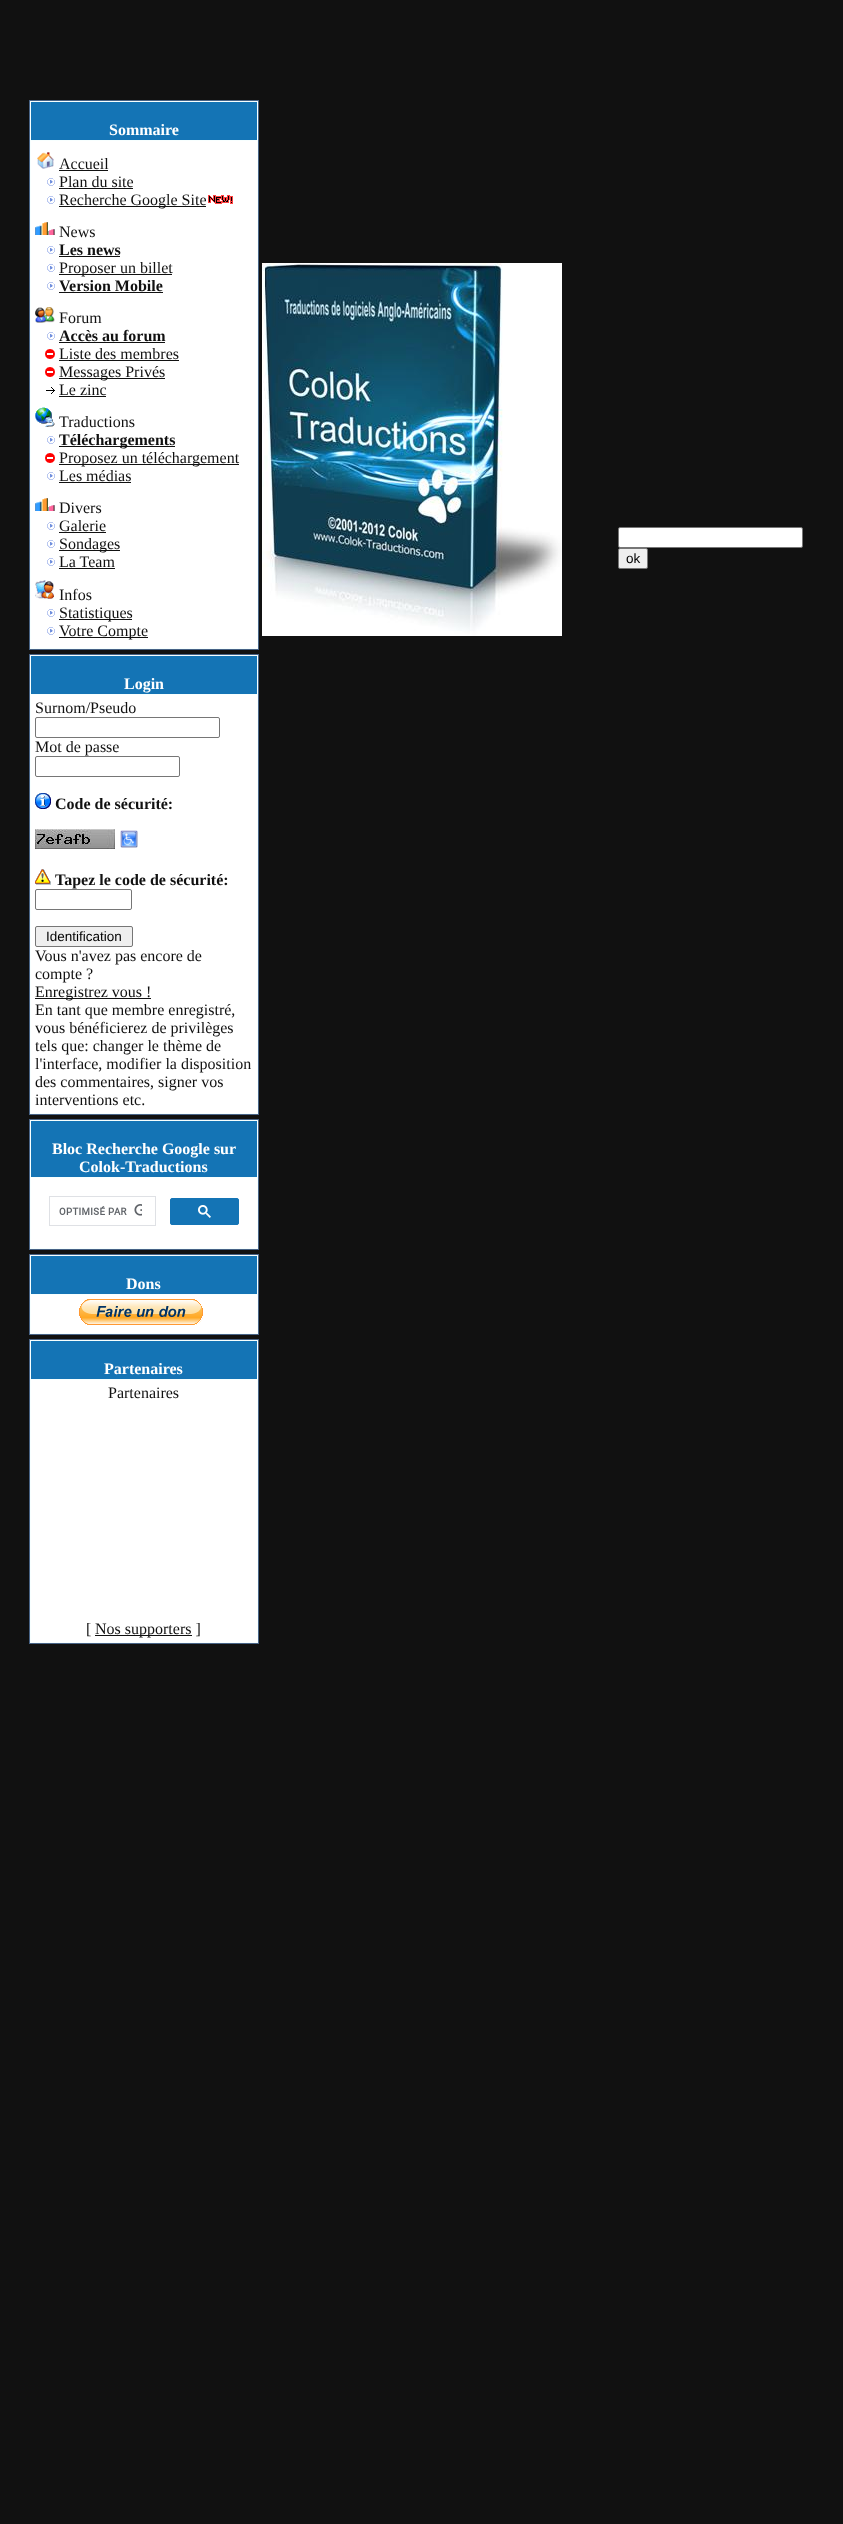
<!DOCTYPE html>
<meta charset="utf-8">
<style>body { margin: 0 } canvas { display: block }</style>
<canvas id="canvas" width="843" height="2524"></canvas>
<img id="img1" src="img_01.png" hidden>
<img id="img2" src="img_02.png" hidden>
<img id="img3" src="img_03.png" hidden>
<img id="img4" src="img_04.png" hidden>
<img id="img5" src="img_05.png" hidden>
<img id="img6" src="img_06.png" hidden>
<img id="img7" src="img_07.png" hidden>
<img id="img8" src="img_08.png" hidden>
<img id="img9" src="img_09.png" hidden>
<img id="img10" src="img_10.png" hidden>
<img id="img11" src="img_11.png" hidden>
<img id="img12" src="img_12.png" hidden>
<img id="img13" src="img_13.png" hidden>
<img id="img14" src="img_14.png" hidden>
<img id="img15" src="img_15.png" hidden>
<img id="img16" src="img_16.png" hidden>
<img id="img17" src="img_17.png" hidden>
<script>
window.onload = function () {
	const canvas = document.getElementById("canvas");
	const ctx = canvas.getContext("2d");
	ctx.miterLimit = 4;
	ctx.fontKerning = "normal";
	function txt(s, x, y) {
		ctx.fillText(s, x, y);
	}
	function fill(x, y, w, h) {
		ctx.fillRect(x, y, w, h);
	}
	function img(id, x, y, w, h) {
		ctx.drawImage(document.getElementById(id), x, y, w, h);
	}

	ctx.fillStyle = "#111111";
	fill(0, 0, 843, 2524);
	ctx.fillStyle = "#486386";
	fill(29, 100, 230, 550);
	ctx.fillStyle = "#F7FFFF";
	fill(30, 101, 228, 548);
	ctx.fillStyle = "#1474B5";
	fill(31, 102, 226, 38);
	ctx.fillStyle = "#FFFFFF";
	fill(31, 141, 226, 507);
	img("img1", 37, 152, 17, 17);
	ctx.fillStyle = "#111111";
	fill(59, 170, 49, 1);
	img("img2", 47, 178, 8, 8);
	fill(59, 188, 74, 1);
	img("img2", 47, 196, 8, 8);
	fill(59, 206, 147, 1);
	img("img3", 208, 195, 25, 9);
	img("img4", 35, 222, 20, 13);
	img("img2", 47, 246, 8, 8);
	fill(59, 256, 61, 1);
	img("img2", 47, 264, 8, 8);
	fill(59, 274, 113, 1);
	img("img2", 47, 282, 8, 8);
	fill(59, 292, 104, 1);
	img("img5", 35, 307, 20, 16);
	img("img2", 47, 332, 8, 8);
	fill(59, 342, 106, 1);
	img("img6", 45, 349, 10, 10);
	fill(59, 360, 120, 1);
	img("img6", 45, 367, 10, 10);
	fill(59, 378, 106, 1);
	img("img7", 46, 387, 9, 7);
	fill(59, 396, 47, 1);
	img("img8", 35, 407, 20, 20);
	img("img2", 47, 436, 8, 8);
	fill(59, 446, 116, 1);
	img("img6", 45, 453, 10, 10);
	fill(59, 464, 180, 1);
	img("img2", 47, 472, 8, 8);
	fill(59, 482, 72, 1);
	img("img4", 35, 498, 20, 13);
	img("img2", 47, 522, 8, 8);
	fill(59, 532, 47, 1);
	img("img2", 47, 540, 8, 8);
	fill(59, 550, 61, 1);
	img("img2", 47, 558, 8, 8);
	fill(59, 568, 56, 1);
	img("img9", 35, 580, 19, 19);
	img("img2", 47, 609, 8, 8);
	fill(59, 619, 73, 1);
	img("img2", 47, 627, 8, 8);
	fill(59, 637, 89, 1);
	ctx.fillStyle = "#486386";
	fill(29, 654, 230, 461);
	ctx.fillStyle = "#F7FFFF";
	fill(30, 655, 228, 459);
	ctx.fillStyle = "#1474B5";
	fill(31, 656, 226, 38);
	ctx.fillStyle = "#FFFFFF";
	fill(31, 695, 226, 418);
	ctx.beginPath();
	ctx.roundRect(35.5, 717.5, 184, 20, 1.5);
	ctx.strokeStyle = "#767676";
	ctx.stroke();
	ctx.beginPath();
	ctx.roundRect(35.5, 756.5, 144, 20, 1.5);
	ctx.stroke();
	img("img10", 35, 793, 16, 16);
	img("img11", 35, 829, 80, 20);
	img("img12", 120, 830, 18, 18);
	img("img13", 35, 869, 16, 16);
	ctx.beginPath();
	ctx.roundRect(35.5, 889.5, 96, 20, 1.5);
	ctx.stroke();
	ctx.fillStyle = "#EFEFEF";
	ctx.beginPath();
	ctx.roundRect(35.5, 926.5, 97, 20, 1.5);
	ctx.fill();
	ctx.stroke();
	ctx.fillStyle = "#111111";
	fill(35, 998, 116, 1);
	ctx.fillStyle = "#486386";
	fill(29, 1119, 230, 131);
	ctx.fillStyle = "#F7FFFF";
	fill(30, 1120, 228, 129);
	ctx.fillStyle = "#1474B5";
	fill(31, 1121, 226, 56);
	ctx.fillStyle = "#FFFFFF";
	fill(31, 1178, 226, 70);
	ctx.strokeStyle = "#DFE1E5";
	ctx.strokeRect(49.5, 1196.5, 106, 29);
	img("img14", 59, 1204, 83, 12);
	ctx.fillStyle = "#1474B5";
	ctx.beginPath();
	ctx.roundRect(170.5, 1198.5, 68, 26, 1.5);
	ctx.fill();
	ctx.strokeStyle = "#1474B5";
	ctx.stroke();
	img("img15", 198, 1205, 13, 13);
	ctx.fillStyle = "#486386";
	fill(29, 1254, 230, 81);
	ctx.fillStyle = "#F7FFFF";
	fill(30, 1255, 228, 79);
	ctx.fillStyle = "#1474B5";
	fill(31, 1256, 226, 38);
	ctx.fillStyle = "#FFFFFF";
	fill(31, 1295, 226, 38);
	img("img16", 79, 1299, 124, 26);
	ctx.fillStyle = "#486386";
	fill(29, 1339, 230, 305);
	ctx.fillStyle = "#F7FFFF";
	fill(30, 1340, 228, 303);
	ctx.fillStyle = "#1474B5";
	fill(31, 1341, 226, 38);
	ctx.fillStyle = "#FFFFFF";
	fill(31, 1380, 226, 262);
	ctx.fillStyle = "#111111";
	fill(95, 1635, 97, 1);
	img("img17", 262, 263, 300, 373);
	ctx.fillStyle = "#FFFFFF";
	ctx.beginPath();
	ctx.roundRect(618.5, 527.5, 184, 20, 1.5);
	ctx.fill();
	ctx.strokeStyle = "#767676";
	ctx.stroke();
	ctx.fillStyle = "#EFEFEF";
	ctx.beginPath();
	ctx.roundRect(618.5, 548.5, 29, 20, 1.5);
	ctx.fill();
	ctx.stroke();
	ctx.font = "bold 16px Liberation Serif";
	ctx.fillStyle = "#FFFFFF";
	txt("Sommaire", 109, 135);
	ctx.font = "16px Liberation Serif";
	ctx.fillStyle = "#111111";
	txt("Accueil", 59, 169);
	txt("Plan du site", 59, 187);
	txt("Recherche Google Site", 59, 205);
	txt("News", 59, 237);
	ctx.font = "bold 16px Liberation Serif";
	txt("Les news", 59, 255);
	ctx.font = "16px Liberation Serif";
	txt("Proposer un billet", 59, 273);
	ctx.font = "bold 16px Liberation Serif";
	txt("Version Mobile", 59, 291);
	ctx.font = "16px Liberation Serif";
	txt("Forum", 59, 323);
	ctx.font = "bold 16px Liberation Serif";
	txt("Accès au forum", 59, 341);
	ctx.font = "16px Liberation Serif";
	txt("Liste des membres", 59, 359);
	txt("Messages Privés", 59, 377);
	txt("Le zinc", 59, 395);
	txt("Traductions", 59, 427);
	ctx.font = "bold 16px Liberation Serif";
	txt("Téléchargements", 59, 445);
	ctx.font = "16px Liberation Serif";
	txt("Proposez un téléchargement", 59, 463);
	txt("Les médias", 59, 481);
	txt("Divers", 59, 513);
	txt("Galerie", 59, 531);
	txt("Sondages", 59, 549);
	txt("La Team", 59, 567);
	txt("Infos", 59, 600);
	txt("Statistiques", 59, 618);
	txt("Votre Compte", 59, 636);
	ctx.font = "bold 16px Liberation Serif";
	ctx.fillStyle = "#FFFFFF";
	txt("Login", 124, 689);
	ctx.font = "16px Liberation Serif";
	ctx.fillStyle = "#111111";
	txt("Surnom/Pseudo", 35, 713);
	txt("Mot de passe", 35, 752);
	ctx.font = "bold 16px Liberation Serif";
	txt("Code de sécurité:", 55, 809);
	txt("Tapez le code de sécurité:", 55, 885);
	ctx.font = "13.5px Liberation Sans";
	ctx.fillStyle = "#000000";
	txt("Identification", 46, 941);
	ctx.font = "16px Liberation Serif";
	ctx.fillStyle = "#111111";
	txt("Vous n'avez pas encore de", 35, 961);
	txt("compte ?", 35, 979);
	txt("Enregistrez vous !", 35, 997);
	txt("En tant que membre enregistré,", 35, 1015);
	txt("vous bénéficierez de privilèges", 35, 1033);
	txt("tels que: changer le thème de", 35, 1051);
	txt("l'interface, modifier la disposition", 35, 1069);
	txt("des commentaires, signer vos", 35, 1087);
	txt("interventions etc.", 35, 1105);
	ctx.font = "bold 16px Liberation Serif";
	ctx.fillStyle = "#FFFFFF";
	txt("Bloc Recherche Google sur", 52, 1154);
	txt("Colok-Traductions", 79, 1172);
	txt("Dons", 126, 1289);
	txt("Partenaires", 104, 1374);
	ctx.font = "16px Liberation Serif";
	ctx.fillStyle = "#111111";
	txt("Partenaires", 108, 1398);
	txt("[", 86, 1634);
	txt("Nos supporters ]", 95, 1634);
	ctx.font = "13.5px Liberation Sans";
	ctx.fillStyle = "#000000";
	txt("ok", 626, 563);
};
</script>
